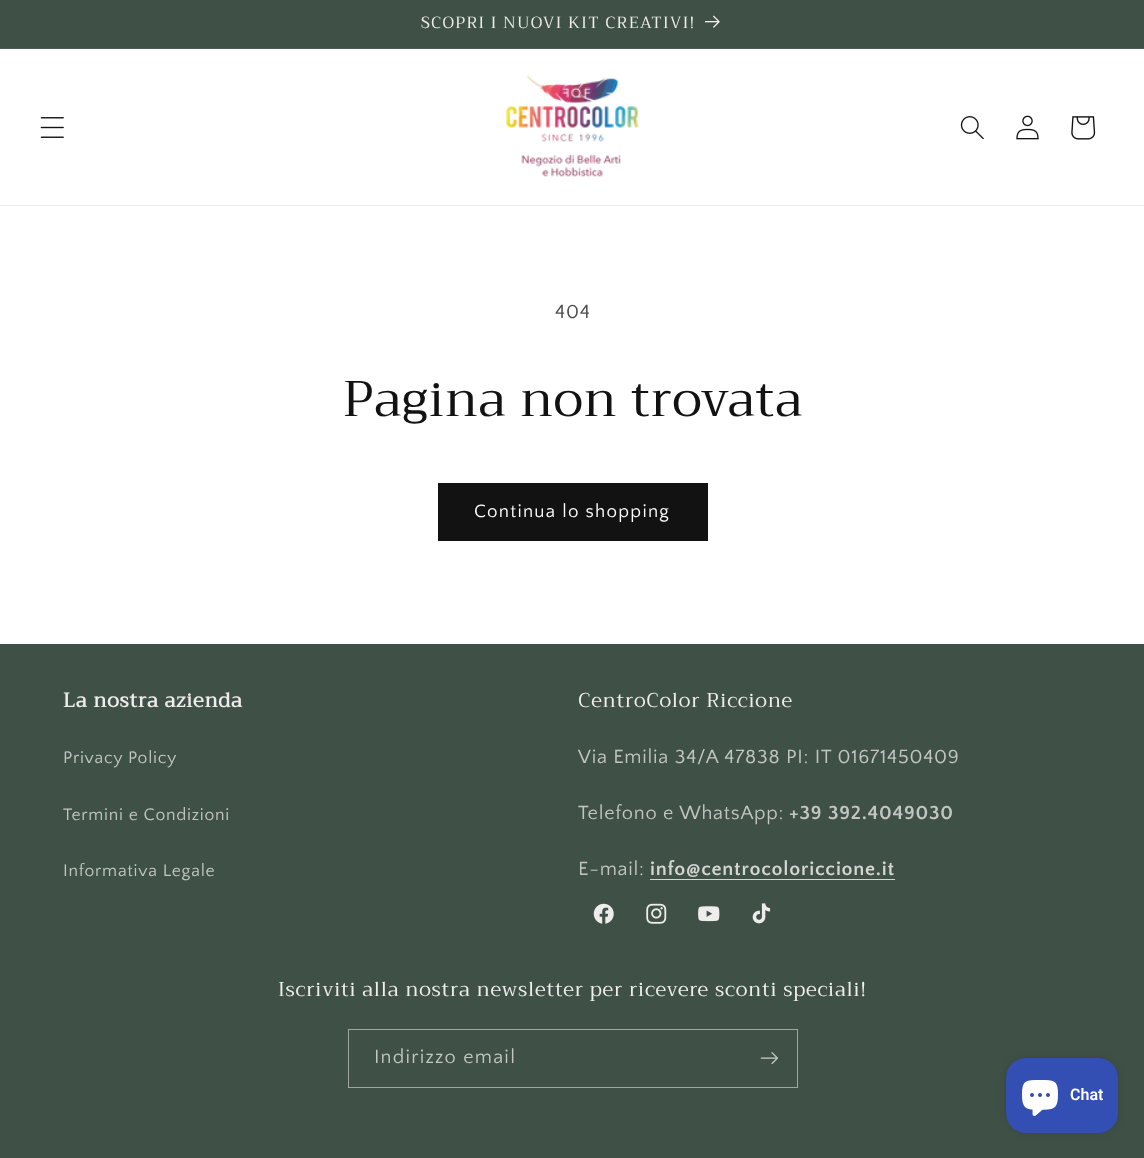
<!DOCTYPE html>
<meta charset="utf-8">
<style>body { margin: 0 } canvas { display: block }</style>
<canvas id="canvas" width="1144" height="1158"></canvas>
<img id="img1" src="img_01.png" hidden>
<img id="img2" src="img_02.png" hidden>
<img id="img3" src="img_03.png" hidden>
<img id="img4" src="img_04.png" hidden>
<img id="img5" src="img_05.png" hidden>
<img id="img6" src="img_06.png" hidden>
<img id="img7" src="img_07.png" hidden>
<img id="img8" src="img_08.png" hidden>
<img id="img9" src="img_09.png" hidden>
<img id="img10" src="img_10.png" hidden>
<img id="img11" src="img_11.png" hidden>
<img id="img12" src="img_12.png" hidden>
<script>
window.onload = function () {
	const canvas = document.getElementById("canvas");
	const ctx = canvas.getContext("2d");
	ctx.miterLimit = 4;
	ctx.fontKerning = "normal";
	function txt(s, x, y) {
		ctx.fillText(s, x, y);
	}
	function fill(x, y, w, h) {
		ctx.fillRect(x, y, w, h);
	}
	function round(x, y, w, h, r) {
		ctx.beginPath();
		ctx.roundRect(x, y, w, h, r);
		ctx.fill();
	}
	function img(id, x, y, w, h) {
		ctx.drawImage(document.getElementById(id), x, y, w, h);
	}

	ctx.fillStyle = "#FFFFFF";
	fill(0, 0, 1144, 1158);
	ctx.fillStyle = "#3F5147";
	fill(0, 0, 1144, 48);
	ctx.fillStyle = "#4D5D54";
	fill(0, 48, 1144, 1);
	img("img1", 705, 15, 15, 13);
	ctx.fillStyle = "#ECECEC";
	fill(0, 205, 1144, 1);
	img("img2", 40, 117, 24, 21);
	img("img3", 506, 75, 133, 102);
	img("img4", 960, 116, 24, 24);
	img("img5", 1016, 115, 23, 25);
	img("img6", 1071, 116, 25, 24);
	ctx.fillStyle = "#121212";
	fill(438, 483, 270, 58);
	ctx.fillStyle = "#3F5147";
	fill(0, 644, 1144, 514);
	ctx.fillStyle = "#D5D5D3";
	fill(650, 879, 245, 1);
	img("img7", 593, 903, 21, 21);
	img("img8", 646, 903, 21, 21);
	img("img9", 698, 906, 22, 16);
	img("img10", 752, 903, 19, 21);
	ctx.strokeStyle = "#A0A6A2";
	ctx.strokeRect(348.5, 1029.5, 449, 58);
	img("img11", 760, 1052, 18, 13);
	ctx.fillStyle = "rgba(0, 0, 0, 0.15)";
	ctx.filter = "blur(3px)";
	ctx.beginPath();
	ctx.roundRect(1006, 1058, 112, 75, 20);
	ctx.fill();
	ctx.filter = "none";
	ctx.fillStyle = "#334FB4";
	round(1006, 1058, 112, 75, 20);
	img("img12", 1022, 1080, 36, 36);
	ctx.letterSpacing = "1.25px";
	ctx.font = "16.25px Trirong";
	ctx.fillStyle = "#EFECEC";
	txt("SCOPRI I NUOVI KIT CREATIVI!", 421, 28);
	ctx.letterSpacing = "0.75px";
	ctx.font = "20px Quattrocento Sans";
	ctx.fillStyle = "#4D4D4D";
	txt("404", 555, 318);
	ctx.font = "50px Trirong";
	ctx.fillStyle = "#121212";
	txt("Pagina non trovata", 343, 416);
	ctx.letterSpacing = "1.25px";
	ctx.font = "18.75px Quattrocento Sans";
	ctx.fillStyle = "#FFFFFF";
	txt("Continua lo shopping", 474, 517);
	ctx.letterSpacing = "0.75px";
	ctx.font = "bold 20px Trirong";
	ctx.fillStyle = "#EFECEC";
	txt("La nostra azienda", 63, 707);
	ctx.font = "17.5px Quattrocento Sans";
	ctx.fillStyle = "#C3C5C3";
	txt("Privacy Policy", 63, 763);
	txt("Termini e Condizioni", 63, 820);
	txt("Informativa Legale", 63, 876);
	ctx.font = "20px Trirong";
	ctx.fillStyle = "#EFECEC";
	txt("CentroColor Riccione", 578, 707);
	ctx.font = "20px Quattrocento Sans";
	ctx.fillStyle = "#C3C5C3";
	txt("Via Emilia 34/A 47838 PI: IT 01671450409", 578, 763);
	txt("Telefono e WhatsApp:", 578, 819);
	ctx.font = "bold 20px Quattrocento Sans";
	txt("+39 392.4049030", 789, 819);
	ctx.font = "20px Quattrocento Sans";
	txt("E-mail:", 578, 875);
	ctx.font = "bold 20px Quattrocento Sans";
	ctx.fillStyle = "#D5D5D3";
	txt("info@centrocoloriccione.it", 650, 875);
	ctx.font = "20px Trirong";
	ctx.fillStyle = "#EFECEC";
	txt("Iscriviti alla nostra newsletter per ricevere sconti speciali!", 278, 996);
	ctx.letterSpacing = "1.25px";
	ctx.font = "20px Quattrocento Sans";
	ctx.fillStyle = "#C3C5C3";
	txt("Indirizzo email", 374, 1063);
	ctx.letterSpacing = "0px";
	ctx.font = "600 16px Roboto";
	ctx.fillStyle = "#FFFFFF";
	txt("Chat", 1070, 1100);
};
</script>
